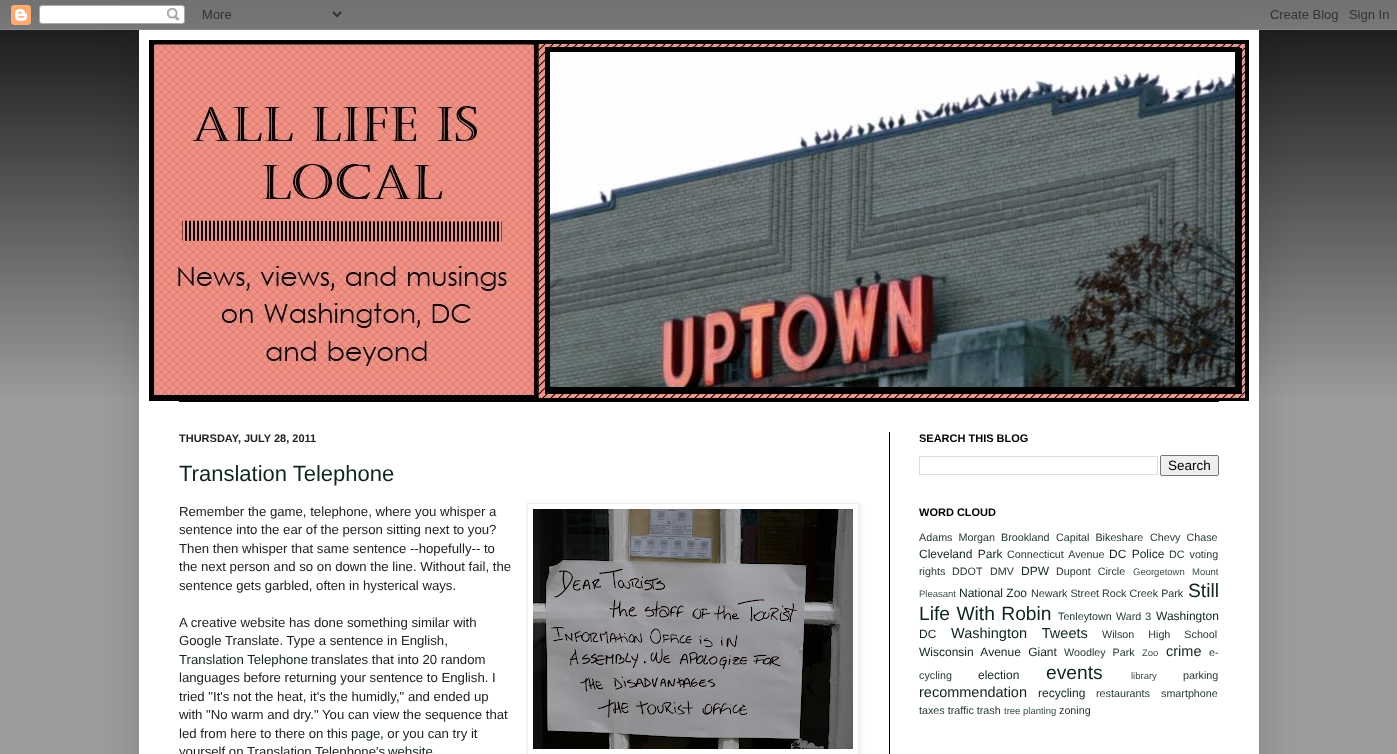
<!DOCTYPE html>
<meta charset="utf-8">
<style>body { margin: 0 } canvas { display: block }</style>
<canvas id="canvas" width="1397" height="754"></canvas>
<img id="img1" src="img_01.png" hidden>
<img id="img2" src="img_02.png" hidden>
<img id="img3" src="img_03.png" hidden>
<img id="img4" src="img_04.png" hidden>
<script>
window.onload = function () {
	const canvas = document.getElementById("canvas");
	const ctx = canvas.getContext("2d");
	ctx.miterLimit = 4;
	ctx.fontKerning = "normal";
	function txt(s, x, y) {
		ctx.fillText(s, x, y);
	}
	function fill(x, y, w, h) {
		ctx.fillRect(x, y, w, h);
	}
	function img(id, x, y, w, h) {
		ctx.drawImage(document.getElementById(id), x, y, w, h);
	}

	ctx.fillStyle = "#9C9C9C";
	fill(0, 0, 1397, 754);
	ctx.fillStyle = "#080808";
	fill(0, 0, 1397, 400);
	img("img1", 0, 0, 1397, 400);
	ctx.fillStyle = "rgba(0, 0, 0, 0.15)";
	ctx.filter = "blur(20px)";
	ctx.beginPath();
	ctx.rect(139, 30, 1120, 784);
	ctx.fill();
	ctx.filter = "none";
	img("img2", 0, 0, 1397, 30);
	ctx.fillStyle = "#FFFFFF";
	fill(139, 30, 1120, 724);
	img("img3", 149, 40, 1100, 361);
	ctx.fillStyle = "#040101";
	fill(179, 401, 1040, 1);
	ctx.fillStyle = "#000000";
	fill(889, 432, 1, 322);
	ctx.save();
	ctx.beginPath();
	ctx.moveTo(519, 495);
	ctx.lineTo(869, 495);
	ctx.lineTo(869, 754);
	ctx.lineTo(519, 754);
	ctx.closePath();
	ctx.moveTo(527, 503);
	ctx.lineTo(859, 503);
	ctx.lineTo(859, 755);
	ctx.lineTo(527, 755);
	ctx.closePath();
	ctx.clip("evenodd");
	ctx.fillStyle = "rgba(0, 0, 0, 0.1)";
	ctx.filter = "blur(2.5px)";
	ctx.beginPath();
	ctx.rect(528, 504, 332, 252);
	ctx.fill();
	ctx.filter = "none";
	ctx.restore();
	ctx.strokeStyle = "#EEEEEE";
	ctx.strokeRect(527.5, 503.5, 331, 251);
	img("img4", 533, 509, 320, 240);
	ctx.strokeStyle = "#DDDDDD";
	ctx.strokeRect(919.5, 456.5, 238, 18);
	ctx.fillStyle = "#EFEFEF";
	ctx.beginPath();
	ctx.roundRect(1160.5, 455.5, 58, 20, 1.5);
	ctx.fill();
	ctx.strokeStyle = "#767676";
	ctx.stroke();
	ctx.font = "bold 11px Arimo";
	ctx.fillStyle = "#222222";
	txt("THURSDAY, JULY 28, 2011", 179, 442);
	ctx.font = "22px Arimo";
	ctx.fillStyle = "#10261B";
	txt("Translation Telephone", 179, 481);
	ctx.font = "13.2px Arimo";
	ctx.fillStyle = "#222222";
	txt("Remember the game, telephone, where you whisper a", 179, 516);
	txt("sentence into the ear of the person sitting next to you?", 179, 534);
	txt("Then then whisper that same sentence --hopefully-- to", 179, 553);
	txt("the next person and so on down the line. Without fail, the", 179, 571);
	txt("sentence gets garbled, often in hysterical ways.", 179, 590);
	txt("A creative website has done something similar with", 179, 627);
	txt("Google Translate. Type a sentence in English,", 179, 645);
	ctx.fillStyle = "#10261B";
	txt("Translation Telephone", 179, 664);
	ctx.fillStyle = "#222222";
	txt("translates that into 20 random", 311, 664);
	txt("languages before returning your sentence to English. I", 179, 682);
	txt("tried \"It's not the heat, it's the humidly,\" and ended up", 179, 701);
	txt("with \"No warm and dry.\" You can view the sequence that", 179, 719);
	txt("led from here to there on this", 179, 738);
	ctx.fillStyle = "#10261B";
	txt("page", 351, 738);
	ctx.fillStyle = "#222222";
	txt(", or you can try it", 380, 738);
	txt("yourself on Translation Telephone's", 179, 756);
	ctx.fillStyle = "#10261B";
	txt("website", 388, 756);
	ctx.font = "bold 11px Arimo";
	ctx.fillStyle = "#000000";
	txt("SEARCH THIS BLOG", 919, 442);
	ctx.font = "13.5px Liberation Sans";
	txt("Search", 1168, 470);
	ctx.font = "bold 11px Arimo";
	txt("WORD CLOUD", 919, 516);
	ctx.wordSpacing = "3px";
	ctx.font = "10.75px Arimo";
	ctx.fillStyle = "#283C32";
	txt("Adams Morgan", 919, 541);
	ctx.wordSpacing = "0px";
	txt("Brookland", 1001, 541);
	ctx.wordSpacing = "3px";
	txt("Capital Bikeshare", 1056, 541);
	txt("Chevy Chase", 1150, 541);
	ctx.wordSpacing = "2px";
	ctx.font = "12px Arimo";
	ctx.fillStyle = "#10261B";
	txt("Cleveland Park", 919, 558);
	ctx.font = "10.75px Arimo";
	ctx.fillStyle = "#283C32";
	txt("Connecticut Avenue", 1007, 558);
	ctx.font = "12px Arimo";
	ctx.fillStyle = "#10261B";
	txt("DC Police", 1109, 558);
	ctx.font = "10.75px Arimo";
	ctx.fillStyle = "#283C32";
	txt("DC voting", 1169, 558);
	ctx.wordSpacing = "0px";
	txt("rights", 919, 575);
	txt("DDOT", 952, 575);
	txt("DMV", 990, 575);
	ctx.font = "12px Arimo";
	ctx.fillStyle = "#10261B";
	txt("DPW", 1021, 575);
	ctx.wordSpacing = "4px";
	ctx.font = "10.75px Arimo";
	ctx.fillStyle = "#283C32";
	txt("Dupont Circle", 1056, 575);
	ctx.wordSpacing = "0px";
	ctx.font = "9.5px Arimo";
	ctx.fillStyle = "#405149";
	txt("Georgetown", 1133, 575);
	txt("Mount", 1192, 575);
	txt("Pleasant", 919, 597);
	ctx.font = "12px Arimo";
	ctx.fillStyle = "#10261B";
	txt("National Zoo", 959, 597);
	ctx.font = "10.75px Arimo";
	ctx.fillStyle = "#283C32";
	txt("Newark Street", 1031, 597);
	txt("Rock Creek Park", 1102, 597);
	ctx.font = "19.25px Arimo";
	ctx.fillStyle = "#10261B";
	txt("Still", 1188, 597);
	ctx.wordSpacing = "1px";
	txt("Life With Robin", 919, 620);
	ctx.wordSpacing = "0px";
	ctx.font = "10.75px Arimo";
	ctx.fillStyle = "#283C32";
	txt("Tenleytown", 1058, 620);
	ctx.wordSpacing = "1px";
	txt("Ward 3", 1116, 620);
	ctx.wordSpacing = "0px";
	ctx.font = "12px Arimo";
	ctx.fillStyle = "#10261B";
	txt("Washington", 1156, 620);
	txt("DC", 919, 638);
	ctx.wordSpacing = "11px";
	ctx.font = "14.5px Arimo";
	txt("Washington Tweets", 951, 638);
	ctx.font = "10.75px Arimo";
	ctx.fillStyle = "#283C32";
	txt("Wilson High School", 1102, 638);
	ctx.wordSpacing = "4px";
	ctx.font = "12px Arimo";
	ctx.fillStyle = "#10261B";
	txt("Wisconsin Avenue Giant", 919, 656);
	ctx.font = "10.75px Arimo";
	ctx.fillStyle = "#283C32";
	txt("Woodley Park", 1064, 656);
	ctx.wordSpacing = "0px";
	ctx.font = "9.5px Arimo";
	ctx.fillStyle = "#405149";
	txt("Zoo", 1142, 656);
	ctx.font = "14.5px Arimo";
	ctx.fillStyle = "#10261B";
	txt("crime", 1166, 656);
	ctx.font = "10.75px Arimo";
	ctx.fillStyle = "#283C32";
	txt("e-", 1209, 656);
	txt("cycling", 919, 679);
	ctx.font = "12px Arimo";
	ctx.fillStyle = "#10261B";
	txt("election", 978, 679);
	ctx.font = "19.25px Arimo";
	txt("events", 1046, 679);
	ctx.font = "9.5px Arimo";
	ctx.fillStyle = "#405149";
	txt("library", 1131, 679);
	ctx.font = "10.75px Arimo";
	ctx.fillStyle = "#283C32";
	txt("parking", 1183, 679);
	ctx.font = "14.5px Arimo";
	ctx.fillStyle = "#10261B";
	txt("recommendation", 919, 697);
	ctx.font = "12px Arimo";
	txt("recycling", 1038, 697);
	ctx.font = "10.75px Arimo";
	ctx.fillStyle = "#283C32";
	txt("restaurants", 1096, 697);
	txt("smartphone", 1161, 697);
	txt("taxes traffic trash", 919, 714);
	ctx.font = "9.5px Arimo";
	ctx.fillStyle = "#405149";
	txt("tree planting", 1004, 714);
	ctx.font = "10.75px Arimo";
	ctx.fillStyle = "#283C32";
	txt("zoning", 1059, 714);
};
</script>
